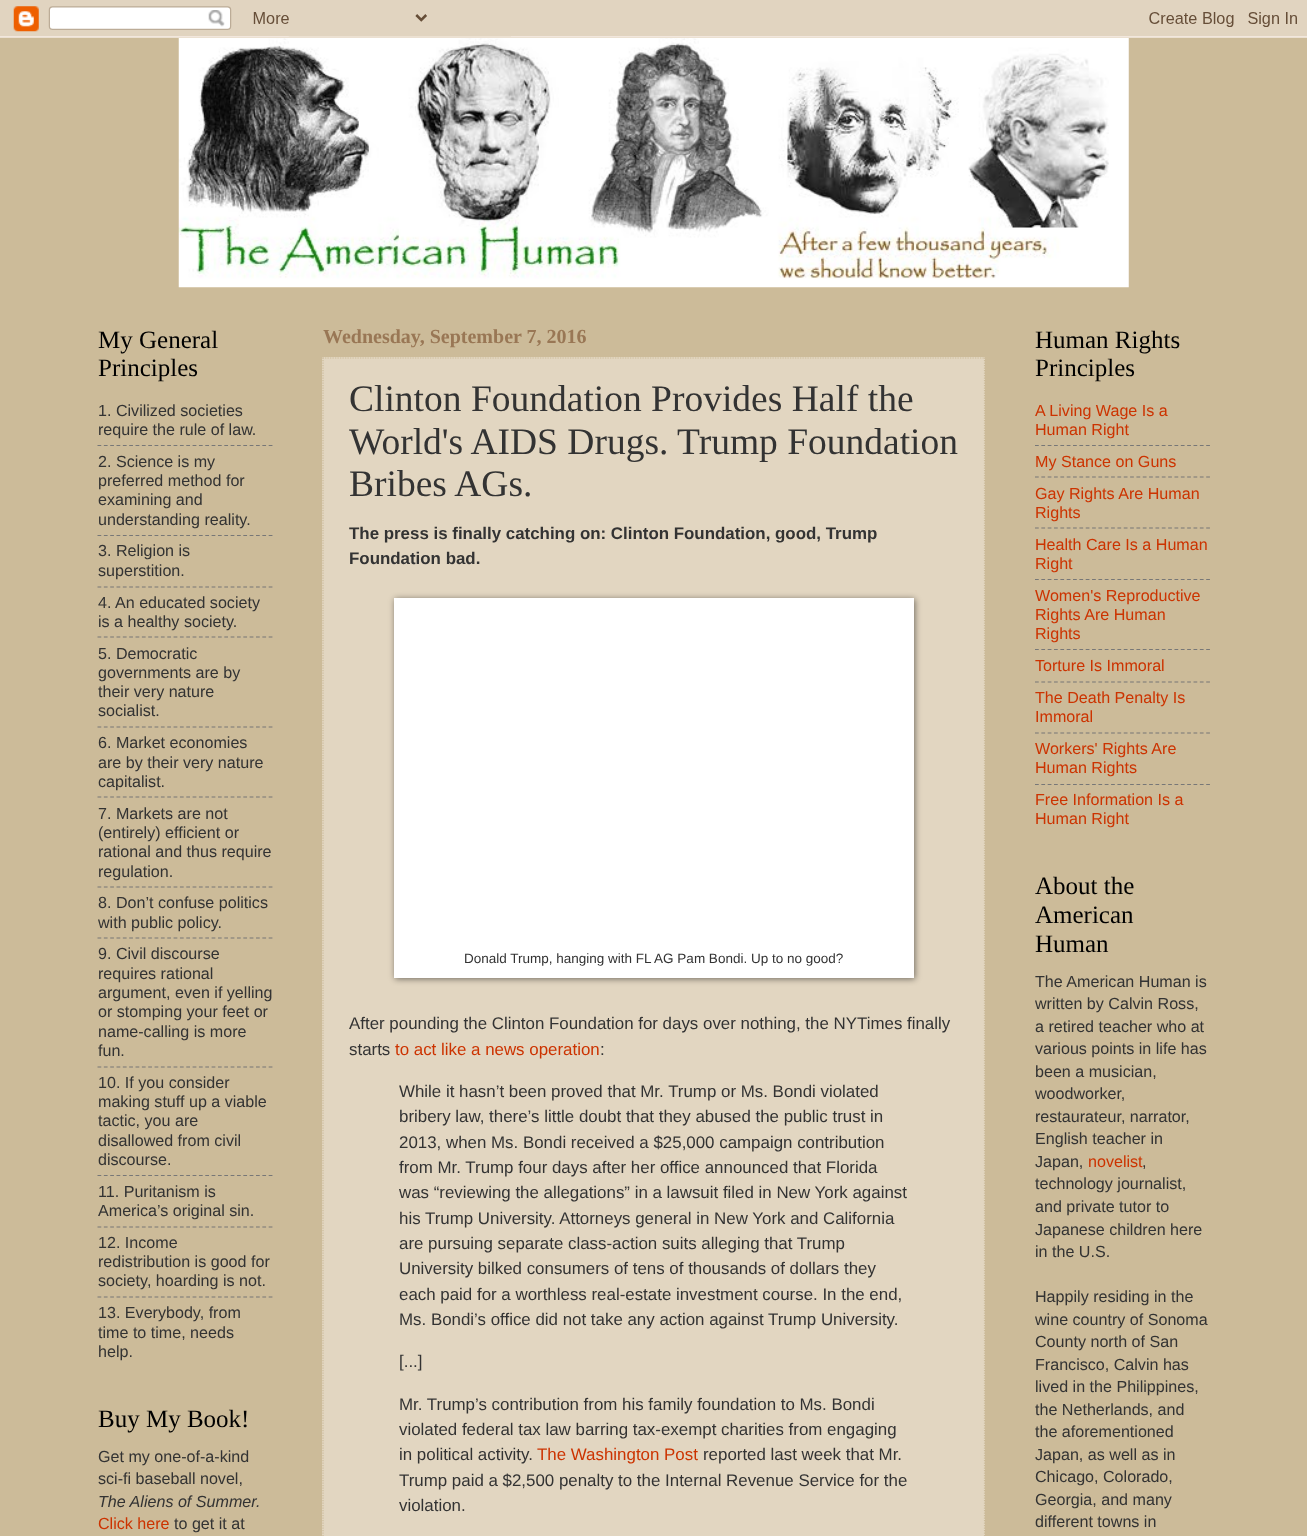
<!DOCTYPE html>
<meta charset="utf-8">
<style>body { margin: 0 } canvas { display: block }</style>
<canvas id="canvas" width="1307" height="1536"></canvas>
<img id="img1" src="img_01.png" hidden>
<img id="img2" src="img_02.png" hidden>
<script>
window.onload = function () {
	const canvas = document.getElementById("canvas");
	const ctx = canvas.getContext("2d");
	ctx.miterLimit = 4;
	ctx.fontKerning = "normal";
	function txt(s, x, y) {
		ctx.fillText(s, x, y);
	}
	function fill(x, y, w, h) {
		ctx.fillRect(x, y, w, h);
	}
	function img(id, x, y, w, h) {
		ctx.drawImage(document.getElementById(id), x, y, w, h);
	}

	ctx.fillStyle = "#CCBB99";
	fill(0, 0, 1307, 1536);
	img("img1", 0, 0, 1307, 38);
	img("img2", 178, 38, 951, 250);
	ctx.beginPath();
	ctx.moveTo(97.5, 445.5);
	ctx.lineTo(272.5, 445.5);
	ctx.strokeStyle = "#777777";
	ctx.lineWidth = 1.2;
	ctx.setLineDash([3.75, 2.59]);
	ctx.stroke();
	ctx.beginPath();
	ctx.moveTo(97.5, 535.5);
	ctx.lineTo(272.5, 535.5);
	ctx.stroke();
	ctx.beginPath();
	ctx.moveTo(97.5, 587);
	ctx.lineTo(272.5, 587);
	ctx.stroke();
	ctx.beginPath();
	ctx.moveTo(97.5, 637);
	ctx.lineTo(272.5, 637);
	ctx.stroke();
	ctx.beginPath();
	ctx.moveTo(97.5, 727);
	ctx.lineTo(272.5, 727);
	ctx.stroke();
	ctx.beginPath();
	ctx.moveTo(97.5, 797);
	ctx.lineTo(272.5, 797);
	ctx.stroke();
	ctx.beginPath();
	ctx.moveTo(97.5, 887);
	ctx.lineTo(272.5, 887);
	ctx.stroke();
	ctx.beginPath();
	ctx.moveTo(97.5, 938);
	ctx.lineTo(272.5, 938);
	ctx.stroke();
	ctx.beginPath();
	ctx.moveTo(97.5, 1067);
	ctx.lineTo(272.5, 1067);
	ctx.stroke();
	ctx.beginPath();
	ctx.moveTo(97.5, 1175.5);
	ctx.lineTo(272.5, 1175.5);
	ctx.stroke();
	ctx.beginPath();
	ctx.moveTo(97.5, 1227);
	ctx.lineTo(272.5, 1227);
	ctx.stroke();
	ctx.beginPath();
	ctx.moveTo(97.5, 1297);
	ctx.lineTo(272.5, 1297);
	ctx.stroke();
	ctx.fillStyle = "#E2D6C1";
	fill(322, 357, 663, 1179);
	ctx.beginPath();
	ctx.moveTo(322.5, 358);
	ctx.lineTo(985, 358);
	ctx.strokeStyle = "#CCBB99";
	ctx.setLineDash([1.25, 1.25]);
	ctx.stroke();
	ctx.beginPath();
	ctx.moveTo(984.5, 357.5);
	ctx.lineTo(984.5, 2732.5);
	ctx.stroke();
	ctx.beginPath();
	ctx.moveTo(323, 357.5);
	ctx.lineTo(323, 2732.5);
	ctx.stroke();
	ctx.fillStyle = "rgba(0, 0, 0, 0.5)";
	ctx.filter = "blur(3px)";
	ctx.beginPath();
	ctx.rect(395, 599, 520, 380);
	ctx.fill();
	ctx.filter = "none";
	ctx.fillStyle = "#FFFFFF";
	fill(394, 598, 520, 380);
	ctx.beginPath();
	ctx.moveTo(1035, 445.5);
	ctx.lineTo(1210, 445.5);
	ctx.strokeStyle = "#777777";
	ctx.setLineDash([3.75, 2.59]);
	ctx.stroke();
	ctx.beginPath();
	ctx.moveTo(1035, 477);
	ctx.lineTo(1210, 477);
	ctx.stroke();
	ctx.beginPath();
	ctx.moveTo(1035, 528);
	ctx.lineTo(1210, 528);
	ctx.stroke();
	ctx.beginPath();
	ctx.moveTo(1035, 579.5);
	ctx.lineTo(1210, 579.5);
	ctx.stroke();
	ctx.beginPath();
	ctx.moveTo(1035, 649.5);
	ctx.lineTo(1210, 649.5);
	ctx.stroke();
	ctx.beginPath();
	ctx.moveTo(1035, 682);
	ctx.lineTo(1210, 682);
	ctx.stroke();
	ctx.beginPath();
	ctx.moveTo(1035, 733);
	ctx.lineTo(1210, 733);
	ctx.stroke();
	ctx.beginPath();
	ctx.moveTo(1035, 784.5);
	ctx.lineTo(1210, 784.5);
	ctx.stroke();
	ctx.font = "25px Liberation Serif";
	ctx.fillStyle = "#000000";
	txt("My General", 98, 348);
	txt("Principles", 98, 376);
	ctx.font = "16.1px Liberation Sans";
	ctx.fillStyle = "#333333";
	txt("1. Civilized societies", 98, 416);
	txt("require the rule of law.", 98, 435);
	txt("2. Science is my", 98, 467);
	txt("preferred method for", 98, 486);
	txt("examining and", 98, 505);
	txt("understanding reality.", 98, 525);
	txt("3. Religion is", 98, 556);
	txt("superstition.", 98, 576);
	txt("4. An educated society", 98, 608);
	txt("is a healthy society.", 98, 627);
	txt("5. Democratic", 98, 659);
	txt("governments are by", 98, 678);
	txt("their very nature", 98, 697);
	txt("socialist.", 98, 716);
	txt("6. Market economies", 98, 748);
	txt("are by their very nature", 98, 768);
	txt("capitalist.", 98, 787);
	txt("7. Markets are not", 98, 819);
	txt("(entirely) efficient or", 98, 838);
	txt("rational and thus require", 98, 857);
	txt("regulation.", 98, 877);
	txt("8. Don’t confuse politics", 98, 908);
	txt("with public policy.", 98, 928);
	txt("9. Civil discourse", 98, 959);
	txt("requires rational", 98, 979);
	txt("argument, even if yelling", 98, 998);
	txt("or stomping your feet or", 98, 1017);
	txt("name-calling is more", 98, 1037);
	txt("fun.", 98, 1056);
	txt("10. If you consider", 98, 1088);
	txt("making stuff up a viable", 98, 1107);
	txt("tactic, you are", 98, 1126);
	txt("disallowed from civil", 98, 1146);
	txt("discourse.", 98, 1165);
	txt("11. Puritanism is", 98, 1197);
	txt("America’s original sin.", 98, 1216);
	txt("12. Income", 98, 1248);
	txt("redistribution is good for", 98, 1267);
	txt("society, hoarding is not.", 98, 1286);
	txt("13. Everybody, from", 98, 1318);
	txt("time to time, needs", 98, 1338);
	txt("help.", 98, 1357);
	ctx.font = "25px Liberation Serif";
	ctx.fillStyle = "#000000";
	txt("Buy My Book!", 98, 1427);
	ctx.font = "16.1px Liberation Sans";
	ctx.fillStyle = "#333333";
	txt("Get my one-of-a-kind", 98, 1462);
	txt("sci-fi baseball novel,", 98, 1484);
	ctx.font = "italic 16.1px Liberation Sans";
	txt("The Aliens of Summer.", 98, 1507);
	ctx.font = "16.1px Liberation Sans";
	ctx.fillStyle = "#CC3300";
	txt("Click here", 98, 1529);
	ctx.fillStyle = "#333333";
	txt("to get it at", 174, 1529);
	ctx.font = "bold 20px Liberation Serif";
	ctx.fillStyle = "#997755";
	txt("Wednesday, September 7, 2016", 323, 343);
	ctx.font = "37.5px Liberation Serif";
	ctx.fillStyle = "#333333";
	txt("Clinton Foundation Provides Half the", 349, 411);
	txt("World's AIDS Drugs. Trump Foundation", 349, 454);
	txt("Bribes AGs.", 349, 496);
	ctx.font = "bold 16.9px Liberation Sans";
	txt("The press is finally catching on: Clinton Foundation, good, Trump", 349, 539);
	txt("Foundation bad.", 349, 564);
	ctx.font = "13.5px Liberation Sans";
	txt("Donald Trump, hanging with FL AG Pam Bondi. Up to no good?", 464, 963);
	ctx.font = "16.9px Liberation Sans";
	txt("After pounding the Clinton Foundation for days over nothing, the NYTimes finally", 349, 1029);
	txt("starts", 349, 1055);
	ctx.fillStyle = "#CC3300";
	txt("to act like a news operation", 395, 1055);
	ctx.fillStyle = "#333333";
	txt(":", 600, 1055);
	txt("While it hasn’t been proved that Mr. Trump or Ms. Bondi violated", 399, 1097);
	txt("bribery law, there’s little doubt that they abused the public trust in", 399, 1122);
	txt("2013, when Ms. Bondi received a $25,000 campaign contribution", 399, 1148);
	txt("from Mr. Trump four days after her office announced that Florida", 399, 1173);
	txt("was “reviewing the allegations” in a lawsuit filed in New York against", 399, 1198);
	txt("his Trump University. Attorneys general in New York and California", 399, 1224);
	txt("are pursuing separate class-action suits alleging that Trump", 399, 1249);
	txt("University bilked consumers of tens of thousands of dollars they", 399, 1274);
	txt("each paid for a worthless real-estate investment course. In the end,", 399, 1300);
	txt("Ms. Bondi’s office did not take any action against Trump University.", 399, 1325);
	txt("[...]", 399, 1367);
	txt("Mr. Trump’s contribution from his family foundation to Ms. Bondi", 399, 1410);
	txt("violated federal tax law barring tax-exempt charities from engaging", 399, 1435);
	txt("in political activity.", 399, 1460);
	ctx.fillStyle = "#CC3300";
	txt("The Washington Post", 537, 1460);
	ctx.fillStyle = "#333333";
	txt("reported last week that Mr.", 703, 1460);
	txt("Trump paid a $2,500 penalty to the Internal Revenue Service for the", 399, 1486);
	txt("violation.", 399, 1511);
	ctx.font = "25px Liberation Serif";
	ctx.fillStyle = "#000000";
	txt("Human Rights", 1035, 348);
	txt("Principles", 1035, 376);
	ctx.font = "16.1px Liberation Sans";
	ctx.fillStyle = "#CC3300";
	txt("A Living Wage Is a", 1035, 416);
	txt("Human Right", 1035, 435);
	txt("My Stance on Guns", 1035, 467);
	txt("Gay Rights Are Human", 1035, 499);
	txt("Rights", 1035, 518);
	txt("Health Care Is a Human", 1035, 550);
	txt("Right", 1035, 569);
	txt("Women's Reproductive", 1035, 601);
	txt("Rights Are Human", 1035, 620);
	txt("Rights", 1035, 639);
	txt("Torture Is Immoral", 1035, 671);
	txt("The Death Penalty Is", 1035, 703);
	txt("Immoral", 1035, 722);
	txt("Workers' Rights Are", 1035, 754);
	txt("Human Rights", 1035, 773);
	txt("Free Information Is a", 1035, 805);
	txt("Human Right", 1035, 824);
	ctx.font = "25px Liberation Serif";
	ctx.fillStyle = "#000000";
	txt("About the", 1035, 894);
	txt("American", 1035, 923);
	txt("Human", 1035, 952);
	ctx.font = "16.1px Liberation Sans";
	ctx.fillStyle = "#333333";
	txt("The American Human is", 1035, 987);
	txt("written by Calvin Ross,", 1035, 1009);
	txt("a retired teacher who at", 1035, 1032);
	txt("various points in life has", 1035, 1054);
	txt("been a musician,", 1035, 1077);
	txt("woodworker,", 1035, 1099);
	txt("restaurateur, narrator,", 1035, 1122);
	txt("English teacher in", 1035, 1144);
	txt("Japan,", 1035, 1167);
	ctx.fillStyle = "#CC3300";
	txt("novelist", 1088, 1167);
	ctx.fillStyle = "#333333";
	txt(",", 1142, 1167);
	txt("technology journalist,", 1035, 1189);
	txt("and private tutor to", 1035, 1212);
	txt("Japanese children here", 1035, 1235);
	txt("in the U.S.", 1035, 1257);
	txt("Happily residing in the", 1035, 1302);
	txt("wine country of Sonoma", 1035, 1325);
	txt("County north of San", 1035, 1347);
	txt("Francisco, Calvin has", 1035, 1370);
	txt("lived in the Philippines,", 1035, 1392);
	txt("the Netherlands, and", 1035, 1415);
	txt("the aforementioned", 1035, 1437);
	txt("Japan, as well as in", 1035, 1460);
	txt("Chicago, Colorado,", 1035, 1482);
	txt("Georgia, and many", 1035, 1505);
	txt("different towns in", 1035, 1527);
};
</script>
